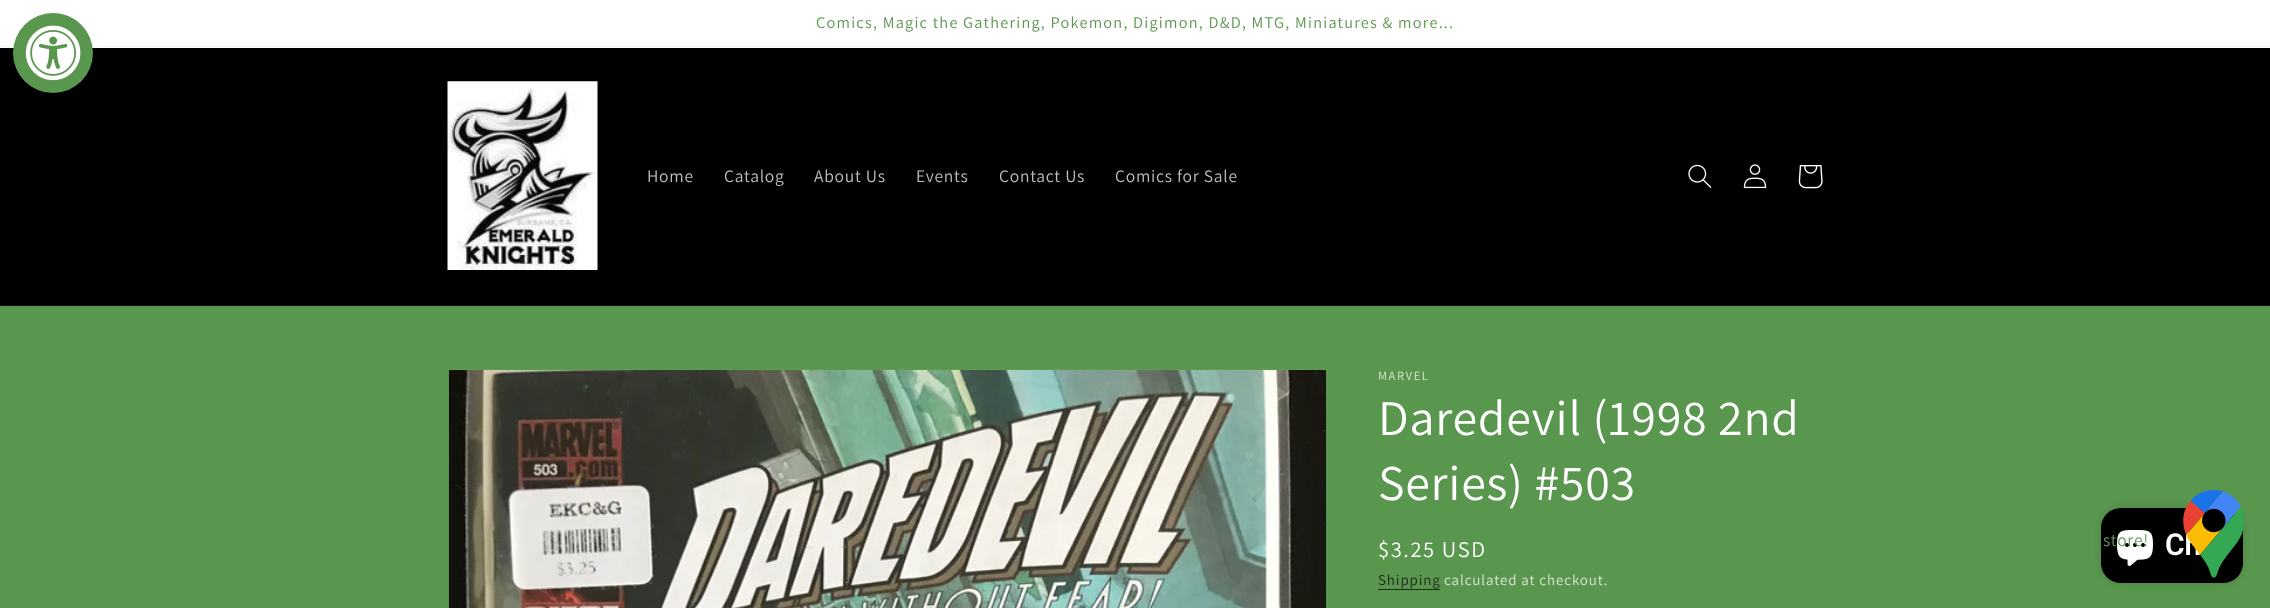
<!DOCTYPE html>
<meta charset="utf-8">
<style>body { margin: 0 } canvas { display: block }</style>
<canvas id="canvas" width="2270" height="608"></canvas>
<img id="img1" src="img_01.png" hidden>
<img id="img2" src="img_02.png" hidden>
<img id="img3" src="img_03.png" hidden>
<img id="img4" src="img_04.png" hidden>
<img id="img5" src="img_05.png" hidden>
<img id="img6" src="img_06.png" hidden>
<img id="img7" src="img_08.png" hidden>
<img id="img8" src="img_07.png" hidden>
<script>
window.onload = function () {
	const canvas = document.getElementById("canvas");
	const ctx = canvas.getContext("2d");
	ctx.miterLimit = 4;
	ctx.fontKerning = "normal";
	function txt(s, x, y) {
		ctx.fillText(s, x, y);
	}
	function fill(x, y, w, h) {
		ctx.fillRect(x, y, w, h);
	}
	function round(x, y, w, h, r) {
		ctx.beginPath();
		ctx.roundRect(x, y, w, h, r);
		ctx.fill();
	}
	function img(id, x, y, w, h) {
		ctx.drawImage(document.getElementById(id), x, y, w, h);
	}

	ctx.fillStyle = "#59964E";
	fill(0, 0, 2270, 608);
	ctx.fillStyle = "#FFFFFF";
	fill(0, 0, 2270, 48);
	ctx.fillStyle = "#F2F7F1";
	fill(0, 46, 2270, 1);
	ctx.fillStyle = "#000000";
	fill(0, 48, 2270, 257);
	ctx.fillStyle = "#59964E";
	ctx.beginPath();
	ctx.arc(53, 53, 40, 0, Math.PI * 2);
	ctx.fill();
	img("img1", 25, 25, 56, 56);
	ctx.fillStyle = "#141414";
	fill(0, 305, 2270, 1);
	img("img2", 447, 81, 151, 189);
	img("img3", 1688, 164, 24, 24);
	img("img4", 1743, 164, 24, 25);
	img("img5", 1798, 165, 25, 24);
	ctx.strokeStyle = "#609A55";
	ctx.strokeRect(448.5, 369.5, 879, 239);
	img("img6", 448, 370, 879, 238);
	ctx.fillStyle = "#1D261B";
	fill(1378, 589, 62, 1);
	ctx.fillStyle = "rgba(0, 0, 0, 0.15)";
	ctx.filter = "blur(3px)";
	ctx.beginPath();
	ctx.roundRect(2101, 508, 142, 75, 20);
	ctx.fill();
	ctx.filter = "none";
	ctx.fillStyle = "#000000";
	round(2101, 508, 142, 75, 20);
	img("img7", 2117, 530, 36, 36);
	ctx.letterSpacing = "1.25px";
	ctx.font = "16.25px Assistant";
	ctx.fillStyle = "#59964E";
	txt("Comics, Magic the Gathering, Pokemon, Digimon, D&D, MTG, Miniatures & more...", 816, 28);
	ctx.letterSpacing = "0.75px";
	ctx.font = "17.5px Assistant";
	ctx.fillStyle = "#BFBFBF";
	txt("Home", 647, 182);
	txt("Catalog", 724, 182);
	txt("About Us", 814, 182);
	txt("Events", 916, 182);
	txt("Contact Us", 999, 182);
	txt("Comics for Sale", 1115, 182);
	ctx.letterSpacing = "1.6px";
	ctx.font = "12.5px Assistant";
	ctx.fillStyle = "#D6E5D3";
	txt("MARVEL", 1378, 380);
	ctx.letterSpacing = "0.75px";
	ctx.font = "50px Assistant";
	ctx.fillStyle = "#FFFFFF";
	txt("Daredevil (1998 2nd", 1378, 435);
	txt("Series) #503", 1378, 500);
	ctx.letterSpacing = "1.6px";
	ctx.font = "22.5px Assistant";
	txt("$3.25 USD", 1378, 557);
	ctx.letterSpacing = "0.9px";
	ctx.font = "15px Assistant";
	ctx.fillStyle = "#1D261B";
	txt("Shipping", 1378, 585);
	ctx.fillStyle = "#D6E5D3";
	txt("calculated at checkout.", 1444, 585);
	ctx.letterSpacing = "0.75px";
	ctx.font = "17.5px Assistant";
	ctx.fillStyle = "#66985D";
	txt("store!", 2103, 546);
	ctx.letterSpacing = "0px";
	ctx.font = "600 30px Roboto";
	ctx.fillStyle = "#FFFFFF";
	txt("Ch", 2165, 555);
	img("img8", 2183, 490, 62, 88);
};
</script>
